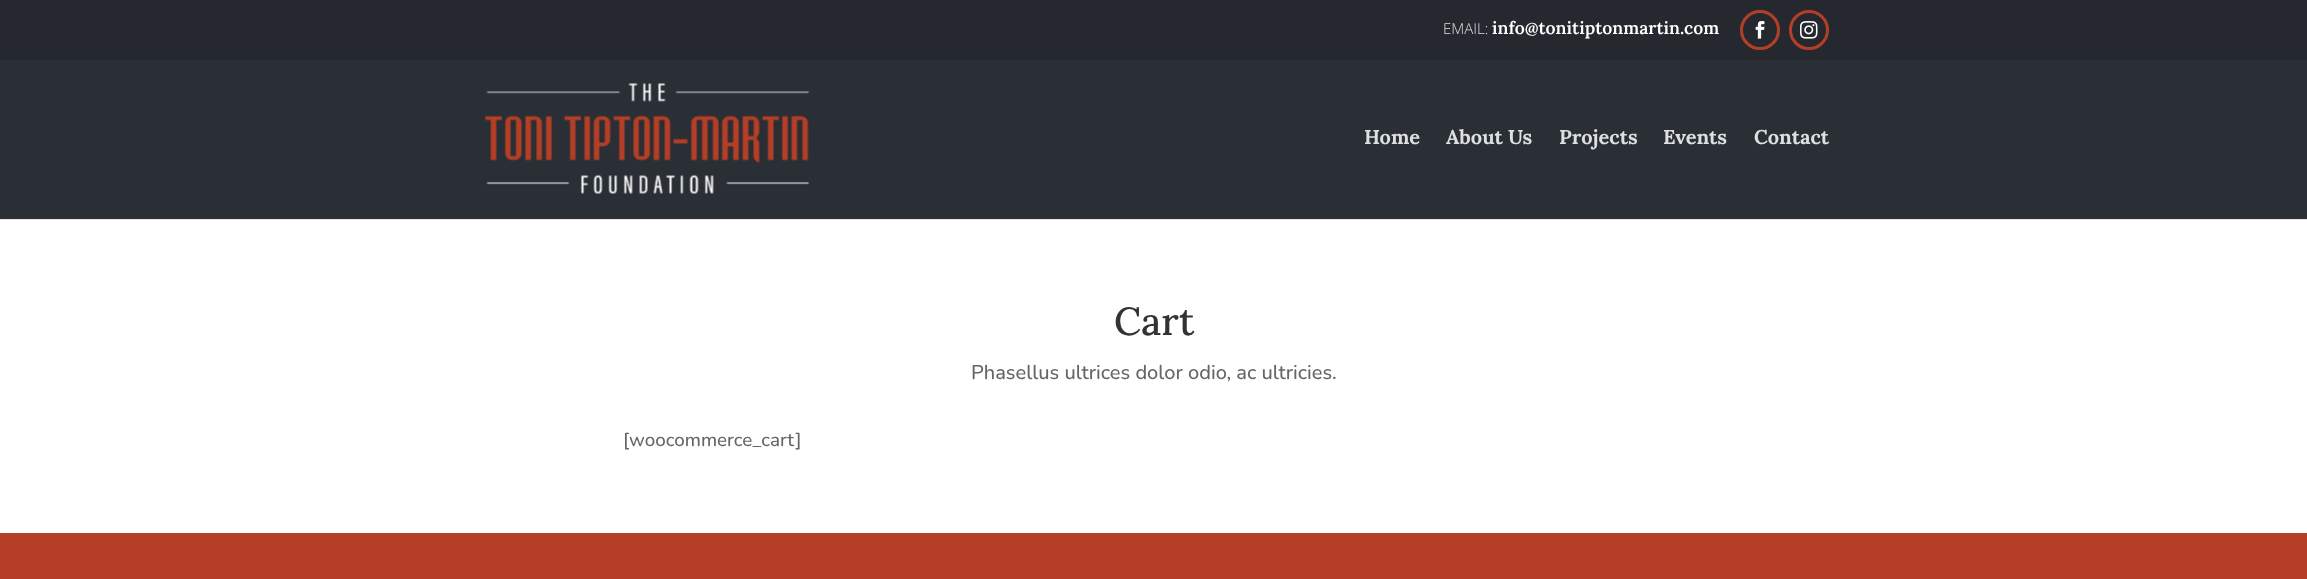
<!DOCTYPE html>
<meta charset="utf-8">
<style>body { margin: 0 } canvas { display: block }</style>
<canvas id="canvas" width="2307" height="579"></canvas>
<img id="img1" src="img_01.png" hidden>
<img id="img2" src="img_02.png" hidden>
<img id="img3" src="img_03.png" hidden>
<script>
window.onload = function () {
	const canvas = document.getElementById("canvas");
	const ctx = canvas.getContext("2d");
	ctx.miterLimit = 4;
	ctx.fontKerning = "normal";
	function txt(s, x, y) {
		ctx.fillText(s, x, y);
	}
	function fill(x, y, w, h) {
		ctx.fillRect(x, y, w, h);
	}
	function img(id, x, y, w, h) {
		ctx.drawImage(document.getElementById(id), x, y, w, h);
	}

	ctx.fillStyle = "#FFFFFF";
	fill(0, 0, 2307, 579);
	ctx.fillStyle = "#25292F";
	fill(0, 0, 2307, 60);
	ctx.beginPath();
	ctx.arc(1760, 30, 18.5, 0, Math.PI * 2);
	ctx.strokeStyle = "#B53F26";
	ctx.lineWidth = 3;
	ctx.stroke();
	img("img1", 1755, 21, 10, 18);
	ctx.beginPath();
	ctx.arc(1809, 30, 18.5, 0, Math.PI * 2);
	ctx.stroke();
	img("img2", 1800, 21, 18, 18);
	ctx.fillStyle = "#E6E6E6";
	ctx.beginPath();
	ctx.moveTo(0, 219);
	ctx.lineTo(0, 220);
	ctx.lineTo(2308, 220);
	ctx.lineTo(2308, 61);
	ctx.lineTo(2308, 219);
	ctx.closePath();
	ctx.fill();
	ctx.fillStyle = "#2A2F36";
	fill(0, 60, 2307, 159);
	img("img3", 484, 83, 326, 111);
	ctx.fillStyle = "#B53F26";
	fill(0, 533, 2307, 46);
	ctx.font = "300 15px Open Sans";
	ctx.fillStyle = "#DEDFE0";
	txt("EMAIL:", 1443, 34);
	ctx.font = "600 17.5px Lora";
	ctx.fillStyle = "#FFFFFF";
	txt("info@tonitiptonmartin.com", 1492, 34);
	ctx.font = "bold 20px Lora";
	ctx.fillStyle = "#DEDFE0";
	txt("Home", 1364, 144);
	txt("About Us", 1446, 144);
	txt("Projects", 1559, 144);
	txt("Events", 1663, 144);
	txt("Contact", 1754, 144);
	ctx.font = "500 39px Lora";
	ctx.fillStyle = "#333333";
	txt("Cart", 1114, 335);
	ctx.font = "500 20px Nunito";
	ctx.fillStyle = "#666666";
	txt("Phasellus ultrices dolor odio, ac ultricies.", 971, 379);
	ctx.font = "500 18.75px Nunito";
	txt("[woocommerce_cart]", 623, 446);
};
</script>
